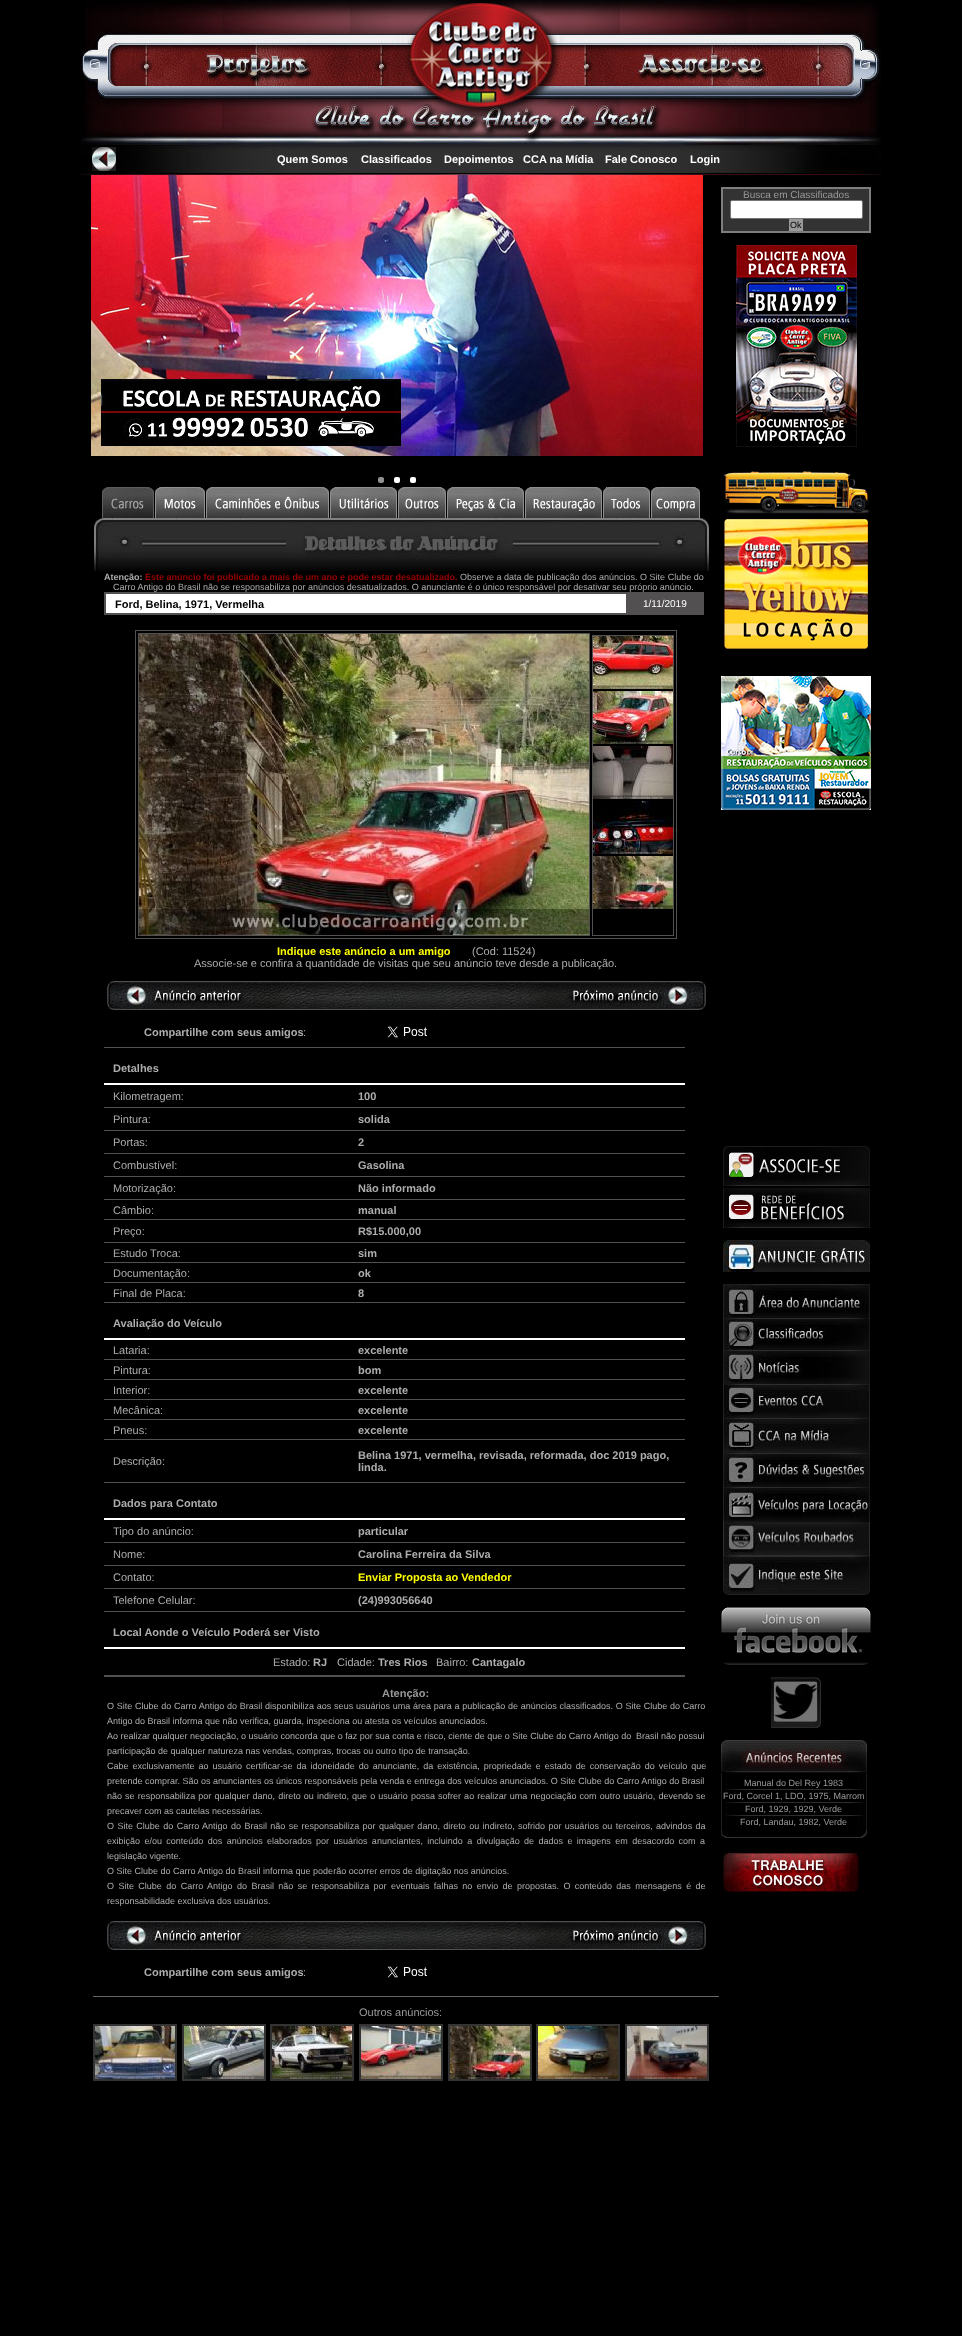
<!DOCTYPE html>
<meta charset="utf-8">
<style>body { margin: 0 } canvas { display: block }</style>
<canvas id="canvas" width="962" height="2336"></canvas>
<img id="img1" src="img_01.png" hidden>
<img id="img2" src="img_02.png" hidden>
<img id="img3" src="img_03.png" hidden>
<img id="img4" src="img_04.png" hidden>
<img id="img5" src="img_05.png" hidden>
<img id="img6" src="img_06.png" hidden>
<img id="img7" src="img_07.png" hidden>
<img id="img8" src="img_08.png" hidden>
<img id="img9" src="img_09.png" hidden>
<img id="img10" src="img_10.png" hidden>
<img id="img11" src="img_11.png" hidden>
<img id="img12" src="img_12.png" hidden>
<img id="img13" src="img_13.png" hidden>
<img id="img14" src="img_14.png" hidden>
<img id="img15" src="img_15.png" hidden>
<img id="img16" src="img_16.png" hidden>
<img id="img17" src="img_17.png" hidden>
<img id="img18" src="img_18.png" hidden>
<img id="img19" src="img_19.png" hidden>
<img id="img20" src="img_20.png" hidden>
<img id="img21" src="img_21.png" hidden>
<img id="img22" src="img_22.png" hidden>
<img id="img23" src="img_23.png" hidden>
<img id="img24" src="img_24.png" hidden>
<img id="img25" src="img_25.png" hidden>
<img id="img26" src="img_26.png" hidden>
<img id="img27" src="img_27.png" hidden>
<img id="img28" src="img_28.png" hidden>
<img id="img29" src="img_29.png" hidden>
<img id="img30" src="img_30.png" hidden>
<img id="img31" src="img_31.png" hidden>
<img id="img32" src="img_32.png" hidden>
<img id="img33" src="img_33.png" hidden>
<img id="img34" src="img_34.png" hidden>
<img id="img35" src="img_35.png" hidden>
<img id="img36" src="img_36.png" hidden>
<img id="img37" src="img_37.png" hidden>
<img id="img38" src="img_38.png" hidden>
<img id="img39" src="img_39.png" hidden>
<img id="img40" src="img_40.png" hidden>
<img id="img41" src="img_41.png" hidden>
<img id="img42" src="img_42.png" hidden>
<img id="img43" src="img_43.png" hidden>
<img id="img44" src="img_44.png" hidden>
<img id="img45" src="img_45.png" hidden>
<img id="img46" src="img_46.png" hidden>
<img id="img47" src="img_47.png" hidden>
<img id="img48" src="img_48.png" hidden>
<img id="img49" src="img_49.png" hidden>
<img id="img50" src="img_50.png" hidden>
<img id="img51" src="img_51.png" hidden>
<img id="img52" src="img_52.png" hidden>
<img id="img53" src="img_53.png" hidden>
<script>
window.onload = function () {
	const canvas = document.getElementById("canvas");
	const ctx = canvas.getContext("2d");
	ctx.miterLimit = 4;
	ctx.fontKerning = "normal";
	function txt(s, x, y) {
		ctx.fillText(s, x, y);
	}
	function fill(x, y, w, h) {
		ctx.fillRect(x, y, w, h);
	}
	function round(x, y, w, h, r) {
		ctx.beginPath();
		ctx.roundRect(x, y, w, h, r);
		ctx.fill();
	}
	function img(id, x, y, w, h) {
		ctx.drawImage(document.getElementById(id), x, y, w, h);
	}

	ctx.fillStyle = "#000000";
	fill(0, 0, 962, 2336);
	img("img1", 81, 0, 800, 144);
	img("img2", 81, 144, 800, 31);
	img("img3", 92, 147, 24, 24);
	img("img4", 91, 175, 612, 281);
	ctx.fillStyle = "#919191";
	round(378, 477, 6, 6, 2);
	ctx.fillStyle = "#FFFFFF";
	round(394, 477, 6, 6, 2);
	round(410, 477, 6, 6, 2);
	img("img5", 102, 487, 52, 31);
	img("img6", 155, 487, 50, 31);
	img("img7", 206, 487, 123, 31);
	img("img8", 330, 487, 67, 31);
	img("img9", 398, 487, 48, 31);
	img("img10", 447, 487, 77, 31);
	img("img11", 525, 487, 77, 31);
	img("img12", 603, 487, 47, 31);
	img("img13", 651, 487, 49, 31);
	img("img14", 94, 518, 615, 53);
	ctx.strokeStyle = "#525050";
	ctx.strokeRect(104.5, 592.5, 599, 22);
	ctx.beginPath();
	ctx.rect(105.5, 593.5, 521, 20);
	ctx.fill();
	ctx.stroke();
	ctx.fillStyle = "#525050";
	fill(627, 593, 76, 21);
	ctx.strokeRect(135.5, 630.5, 541, 308);
	ctx.strokeRect(138.5, 633.5, 451, 302);
	img("img15", 139, 634, 450, 301);
	ctx.strokeRect(592.5, 635.5, 81, 300);
	img("img16", 593, 636, 80, 53);
	img("img17", 593, 691, 80, 53);
	img("img18", 593, 746, 80, 53);
	img("img19", 593, 801, 80, 53);
	img("img20", 593, 856, 80, 53);
	img("img21", 107, 981, 299, 29);
	img("img22", 406, 981, 300, 29);
	img("img23", 387, 1026, 40, 12);
	fill(104, 1047, 581, 1);
	ctx.fillStyle = "#FFFFFF";
	fill(104, 1083, 581, 2);
	ctx.fillStyle = "#525050";
	fill(104, 1107, 581, 1);
	fill(104, 1130, 581, 1);
	fill(104, 1153, 581, 1);
	fill(104, 1176, 581, 1);
	fill(104, 1199, 581, 1);
	fill(104, 1219, 581, 1);
	fill(104, 1242, 581, 1);
	fill(104, 1262, 581, 1);
	fill(104, 1282, 581, 1);
	fill(104, 1302, 581, 1);
	ctx.fillStyle = "#FFFFFF";
	fill(104, 1338, 581, 2);
	ctx.fillStyle = "#525050";
	fill(104, 1359, 581, 1);
	fill(104, 1379, 581, 1);
	fill(104, 1399, 581, 1);
	fill(104, 1419, 581, 1);
	fill(104, 1439, 581, 1);
	fill(104, 1482, 581, 1);
	ctx.fillStyle = "#FFFFFF";
	fill(104, 1518, 581, 2);
	ctx.fillStyle = "#525050";
	fill(104, 1542, 581, 1);
	fill(104, 1565, 581, 1);
	fill(104, 1588, 581, 1);
	fill(104, 1611, 581, 1);
	ctx.fillStyle = "#FFFFFF";
	fill(104, 1647, 581, 2);
	ctx.fillStyle = "#525050";
	fill(104, 1675, 581, 1);
	fill(104, 1676, 581, 1);
	img("img21", 107, 1921, 299, 29);
	img("img22", 406, 1921, 300, 29);
	img("img23", 387, 1966, 40, 12);
	ctx.fillStyle = "#666666";
	fill(93, 1996, 626, 1);
	ctx.strokeStyle = "#333333";
	ctx.strokeRect(93.5, 2024.5, 83, 56);
	ctx.strokeRect(94.5, 2025.5, 81, 54);
	img("img24", 95, 2026, 80, 53);
	ctx.strokeRect(182.5, 2024.5, 83, 56);
	ctx.strokeRect(183.5, 2025.5, 81, 54);
	img("img25", 184, 2026, 80, 53);
	ctx.strokeRect(270.5, 2024.5, 83, 56);
	ctx.strokeRect(271.5, 2025.5, 81, 54);
	img("img26", 272, 2026, 80, 53);
	ctx.strokeRect(359.5, 2024.5, 83, 56);
	ctx.strokeRect(360.5, 2025.5, 81, 54);
	img("img27", 361, 2026, 80, 53);
	ctx.strokeRect(448.5, 2024.5, 83, 56);
	ctx.strokeRect(449.5, 2025.5, 81, 54);
	img("img20", 450, 2026, 80, 53);
	ctx.strokeRect(536.5, 2024.5, 83, 56);
	ctx.strokeRect(537.5, 2025.5, 81, 54);
	img("img28", 538, 2026, 80, 53);
	ctx.strokeRect(625.5, 2024.5, 83, 56);
	ctx.strokeRect(626.5, 2025.5, 81, 54);
	img("img29", 627, 2026, 80, 53);
	ctx.fillStyle = "#333333";
	fill(723, 189, 146, 42);
	ctx.strokeStyle = "#7E7E7E";
	ctx.strokeRect(721.5, 187.5, 149, 45);
	ctx.strokeRect(722.5, 188.5, 147, 43);
	ctx.fillStyle = "#FFFFFF";
	ctx.beginPath();
	ctx.roundRect(730.5, 200.5, 132, 18, 1.5);
	ctx.fill();
	ctx.strokeStyle = "#767676";
	ctx.stroke();
	ctx.fillStyle = "#999999";
	fill(789, 219, 14, 12);
	img("img30", 736, 245, 121, 202);
	img("img31", 724, 471, 146, 43);
	img("img32", 724, 518, 145, 131);
	img("img33", 721, 676, 150, 134);
	img("img34", 723, 1146, 147, 40);
	img("img35", 723, 1188, 147, 40);
	img("img36", 723, 1240, 147, 32);
	img("img37", 723, 1284, 147, 34);
	img("img38", 723, 1318, 147, 32);
	img("img39", 723, 1350, 147, 34);
	img("img40", 723, 1384, 147, 34);
	img("img41", 723, 1418, 147, 35);
	img("img42", 723, 1453, 147, 34);
	img("img43", 723, 1487, 147, 35);
	img("img44", 723, 1522, 147, 34);
	img("img45", 723, 1556, 147, 39);
	img("img46", 721, 1607, 150, 58);
	img("img47", 771, 1677, 50, 51);
	img("img48", 721, 1773, 146, 5);
	img("img49", 721, 1740, 146, 33);
	img("img50", 721, 1778, 146, 49);
	img("img51", 725, 1789, 138, 1);
	img("img51", 725, 1802, 138, 1);
	img("img51", 725, 1815, 138, 1);
	img("img52", 721, 1827, 146, 11);
	img("img53", 721, 1850, 138, 44);
	ctx.font = "bold 11px Liberation Sans";
	ctx.fillStyle = "#FFFFFF";
	txt("Quem Somos", 277, 163);
	txt("Classificados", 361, 163);
	txt("Depoimentos", 444, 163);
	txt("CCA na Mídia", 523, 163);
	txt("Fale Conosco", 605, 163);
	txt("Login", 690, 163);
	ctx.font = "bold 9px Liberation Sans";
	ctx.fillStyle = "#ADADAD";
	txt("Atenção:", 104, 580);
	ctx.fillStyle = "#990000";
	txt("Este anúncio foi publicado a mais de um ano e pode estar desatualizado.", 145, 580);
	ctx.font = "9px Liberation Sans";
	ctx.fillStyle = "#ADADAD";
	txt("Observe a data de publicação dos anúncios. O Site Clube do", 460, 580);
	txt("Carro Antigo do Brasil não se responsabiliza por anúncios desatualizados. O anunciante é o único responsável por desativar seu próprio anúncio.", 113, 590);
	ctx.font = "bold 11px Liberation Sans";
	ctx.fillStyle = "#000000";
	txt("Ford, Belina, 1971, Vermelha", 115, 608);
	ctx.font = "10px Liberation Sans";
	ctx.fillStyle = "#FFFFFF";
	txt("1/11/2019", 643, 607);
	ctx.font = "bold 11px Liberation Sans";
	ctx.fillStyle = "#FFFF00";
	txt("Indique este anúncio a um amigo", 277, 955);
	ctx.font = "11px Liberation Sans";
	ctx.fillStyle = "#ADADAD";
	txt("(Cod: 11524)", 472, 955);
	txt("Associe-se e confira a quantidade de visitas que seu anúncio teve desde a publicação.", 194, 967);
	ctx.font = "bold 11px Liberation Sans";
	txt("Compartilhe com seus amigos", 144, 1036);
	ctx.font = "11px Liberation Sans";
	txt(":", 303, 1036);
	ctx.font = "bold 11px Liberation Sans";
	txt("Detalhes", 113, 1072);
	ctx.font = "11px Liberation Sans";
	txt("Kilometragem:", 113, 1100);
	ctx.font = "bold 11px Liberation Sans";
	txt("100", 358, 1100);
	ctx.font = "11px Liberation Sans";
	txt("Pintura:", 113, 1123);
	ctx.font = "bold 11px Liberation Sans";
	txt("solida", 358, 1123);
	ctx.font = "11px Liberation Sans";
	txt("Portas:", 113, 1146);
	ctx.font = "bold 11px Liberation Sans";
	txt("2", 358, 1146);
	ctx.font = "11px Liberation Sans";
	txt("Combustível:", 113, 1169);
	ctx.font = "bold 11px Liberation Sans";
	txt("Gasolina", 358, 1169);
	ctx.font = "11px Liberation Sans";
	txt("Motorização:", 113, 1192);
	ctx.font = "bold 11px Liberation Sans";
	txt("Não informado", 358, 1192);
	ctx.font = "11px Liberation Sans";
	txt("Câmbio:", 113, 1214);
	ctx.font = "bold 11px Liberation Sans";
	txt("manual", 358, 1214);
	ctx.font = "11px Liberation Sans";
	txt("Preço:", 113, 1235);
	ctx.font = "bold 11px Liberation Sans";
	txt("R$15.000,00", 358, 1235);
	ctx.font = "11px Liberation Sans";
	txt("Estudo Troca:", 113, 1257);
	ctx.font = "bold 11px Liberation Sans";
	txt("sim", 358, 1257);
	ctx.font = "11px Liberation Sans";
	txt("Documentação:", 113, 1277);
	ctx.font = "bold 11px Liberation Sans";
	txt("ok", 358, 1277);
	ctx.font = "11px Liberation Sans";
	txt("Final de Placa:", 113, 1297);
	ctx.font = "bold 11px Liberation Sans";
	txt("8", 358, 1297);
	txt("Avaliação do Veículo", 113, 1327);
	ctx.font = "11px Liberation Sans";
	txt("Lataria:", 113, 1354);
	ctx.font = "bold 11px Liberation Sans";
	txt("excelente", 358, 1354);
	ctx.font = "11px Liberation Sans";
	txt("Pintura:", 113, 1374);
	ctx.font = "bold 11px Liberation Sans";
	txt("bom", 358, 1374);
	ctx.font = "11px Liberation Sans";
	txt("Interior:", 113, 1394);
	ctx.font = "bold 11px Liberation Sans";
	txt("excelente", 358, 1394);
	ctx.font = "11px Liberation Sans";
	txt("Mecânica:", 113, 1414);
	ctx.font = "bold 11px Liberation Sans";
	txt("excelente", 358, 1414);
	ctx.font = "11px Liberation Sans";
	txt("Pneus:", 113, 1434);
	ctx.font = "bold 11px Liberation Sans";
	txt("excelente", 358, 1434);
	ctx.font = "11px Liberation Sans";
	txt("Descrição:", 113, 1465);
	ctx.font = "bold 11px Liberation Sans";
	txt("Belina 1971, vermelha, revisada, reformada, doc 2019 pago,", 358, 1459);
	txt("linda.", 358, 1471);
	txt("Dados para Contato", 113, 1507);
	ctx.font = "11px Liberation Sans";
	txt("Tipo do anúncio:", 113, 1535);
	ctx.font = "bold 11px Liberation Sans";
	txt("particular", 358, 1535);
	ctx.font = "11px Liberation Sans";
	txt("Nome:", 113, 1558);
	ctx.font = "bold 11px Liberation Sans";
	txt("Carolina Ferreira da Silva", 358, 1558);
	ctx.font = "11px Liberation Sans";
	txt("Contato:", 113, 1581);
	ctx.font = "bold 11px Liberation Sans";
	ctx.fillStyle = "#FFFF00";
	txt("Enviar Proposta ao Vendedor", 358, 1581);
	ctx.font = "11px Liberation Sans";
	ctx.fillStyle = "#ADADAD";
	txt("Telefone Celular:", 113, 1604);
	ctx.font = "bold 11px Liberation Sans";
	txt("(24)993056640", 358, 1604);
	txt("Local Aonde o Veículo Poderá ser Visto", 113, 1636);
	ctx.font = "11px Liberation Sans";
	txt("Estado:", 273, 1666);
	ctx.font = "bold 11px Liberation Sans";
	txt("RJ", 313, 1666);
	ctx.font = "11px Liberation Sans";
	txt("Cidade:", 337, 1666);
	ctx.font = "bold 11px Liberation Sans";
	txt("Tres Rios", 378, 1666);
	ctx.font = "11px Liberation Sans";
	txt("Bairro:", 436, 1666);
	ctx.font = "bold 11px Liberation Sans";
	txt("Cantagalo", 472, 1666);
	ctx.fillStyle = "#999999";
	txt("Atenção:", 382, 1697);
	ctx.wordSpacing = "0.25px";
	ctx.font = "9px Liberation Sans";
	ctx.fillStyle = "#ADADAD";
	txt("O Site Clube do Carro Antigo do Brasil disponibiliza aos seus usuários uma área para a publicação de anúncios classificados. O Site Clube do Carro", 107, 1709);
	ctx.wordSpacing = "0px";
	txt("Antigo do Brasil informa que não verifica, guarda, inspeciona ou atesta os veículos anunciados.", 107, 1724);
	txt("Ao realizar qualquer negociação, o usuário concorda que o faz por sua conta e risco, ciente de que o Site Clube do Carro Antigo do", 107, 1739);
	txt("Brasil não possui", 636, 1739);
	txt("participação de qualquer natureza nas vendas, compras, trocas ou outro tipo de transação.", 107, 1754);
	ctx.wordSpacing = "1.5px";
	txt("Cabe exclusivamente ao usuário certificar-se da idoneidade do anunciante, da existência, propriedade e estado de conservação do veículo que", 107, 1769);
	ctx.wordSpacing = "0px";
	txt("pretende comprar. São os anunciantes os únicos responsáveis pela venda e entrega dos veículos anunciados. O Site Clube do Carro Antigo do Brasil", 107, 1784);
	ctx.wordSpacing = "0.6px";
	txt("não se responsabiliza por qualquer dano, direto ou indireto, que o usuário possa sofrer ao realizar uma negociação com outro usuário, devendo se", 107, 1799);
	ctx.wordSpacing = "0px";
	txt("precaver com as cautelas necessárias.", 107, 1814);
	ctx.wordSpacing = "0.9px";
	txt("O Site Clube do Carro Antigo do Brasil não se responsabiliza por qualquer dano, direto ou indireto, sofrido por usuários ou terceiros, advindos da", 107, 1829);
	ctx.wordSpacing = "1.9px";
	txt("exibição e/ou conteúdo dos anúncios elaborados por usuários anunciantes, incluindo a divulgação de dados e imagens em desacordo com a", 107, 1844);
	ctx.wordSpacing = "0px";
	txt("legislação vigente.", 107, 1859);
	txt("O Site Clube do Carro Antigo do Brasil informa que poderão ocorrer erros de digitação nos anúncios.", 107, 1874);
	ctx.wordSpacing = "1.9px";
	txt("O Site Clube do Carro Antigo do Brasil não se responsabiliza por eventuais falhas no envio de propostas. O conteúdo das mensagens é de", 107, 1889);
	ctx.wordSpacing = "0px";
	txt("responsabilidade exclusiva dos usuários.", 107, 1904);
	ctx.font = "bold 11px Liberation Sans";
	txt("Compartilhe com seus amigos", 144, 1976);
	ctx.font = "11px Liberation Sans";
	txt(":", 303, 1976);
	ctx.fillStyle = "#999999";
	txt("Outros anúncios:", 359, 2016);
	ctx.font = "10px Liberation Sans";
	txt("Busca em Classificados", 743, 198);
	ctx.font = "9px Liberation Sans";
	ctx.fillStyle = "#000000";
	txt("Ok", 790, 228);
	ctx.fillStyle = "#999999";
	txt("Manual do Del Rey 1983", 744, 1786);
	txt("Ford, Corcel 1, LDO, 1975, Marrom", 723, 1799);
	txt("Ford, 1929, 1929, Verde", 745, 1812);
	txt("Ford, Landau, 1982, Verde", 740, 1825);
};
</script>
